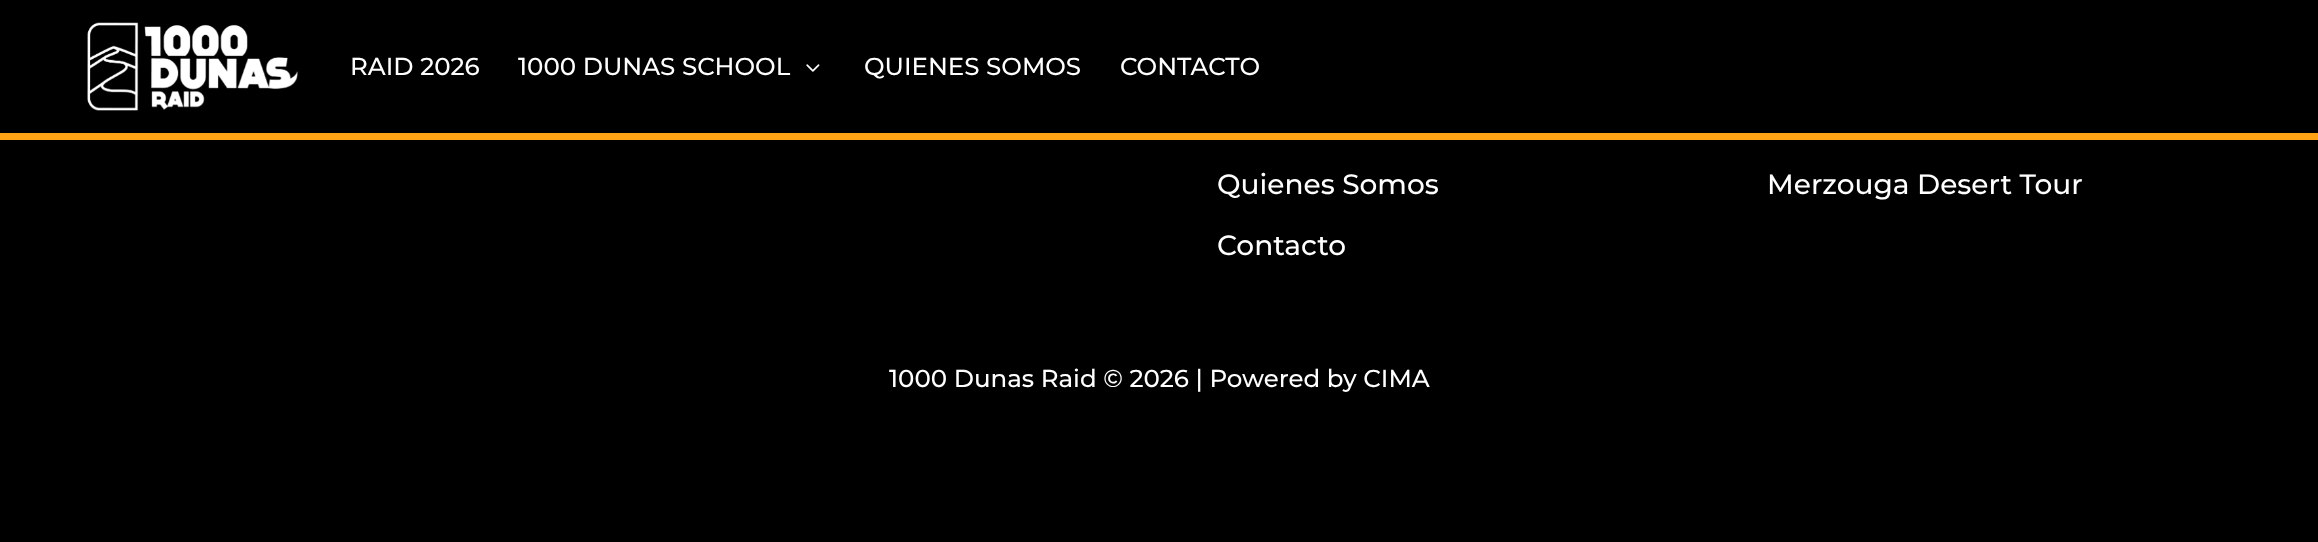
<!DOCTYPE html>
<meta charset="utf-8">
<style>body { margin: 0 } canvas { display: block }</style>
<canvas id="canvas" width="2318" height="542"></canvas>
<img id="img1" src="img_01.png" hidden>
<img id="img2" src="img_02.png" hidden>
<script>
window.onload = function () {
	const canvas = document.getElementById("canvas");
	const ctx = canvas.getContext("2d");
	ctx.miterLimit = 4;
	ctx.fontKerning = "normal";
	function txt(s, x, y) {
		ctx.fillText(s, x, y);
	}
	function fill(x, y, w, h) {
		ctx.fillRect(x, y, w, h);
	}
	function img(id, x, y, w, h) {
		ctx.drawImage(document.getElementById(id), x, y, w, h);
	}

	ctx.fillStyle = "#000000";
	fill(0, 0, 2318, 542);
	ctx.fillStyle = "#FFA315";
	fill(0, 133, 2318, 7);
	img("img1", 87, 22, 211, 89);
	img("img2", 806, 64, 14, 8);
	ctx.font = "500 24.5px Montserrat";
	ctx.fillStyle = "#FFFFFF";
	txt("RAID 2026", 350, 75);
	txt("1000 DUNAS SCHOOL", 518, 75);
	txt("QUIENES SOMOS", 864, 75);
	txt("CONTACTO", 1120, 75);
	ctx.font = "500 28px Montserrat";
	txt("Quienes Somos", 1217, 194);
	txt("Contacto", 1217, 255);
	txt("Merzouga Desert Tour", 1767, 194);
	ctx.font = "500 24.5px Montserrat";
	txt("1000 Dunas Raid © 2026 | Powered by CIMA", 889, 387);
};
</script>
